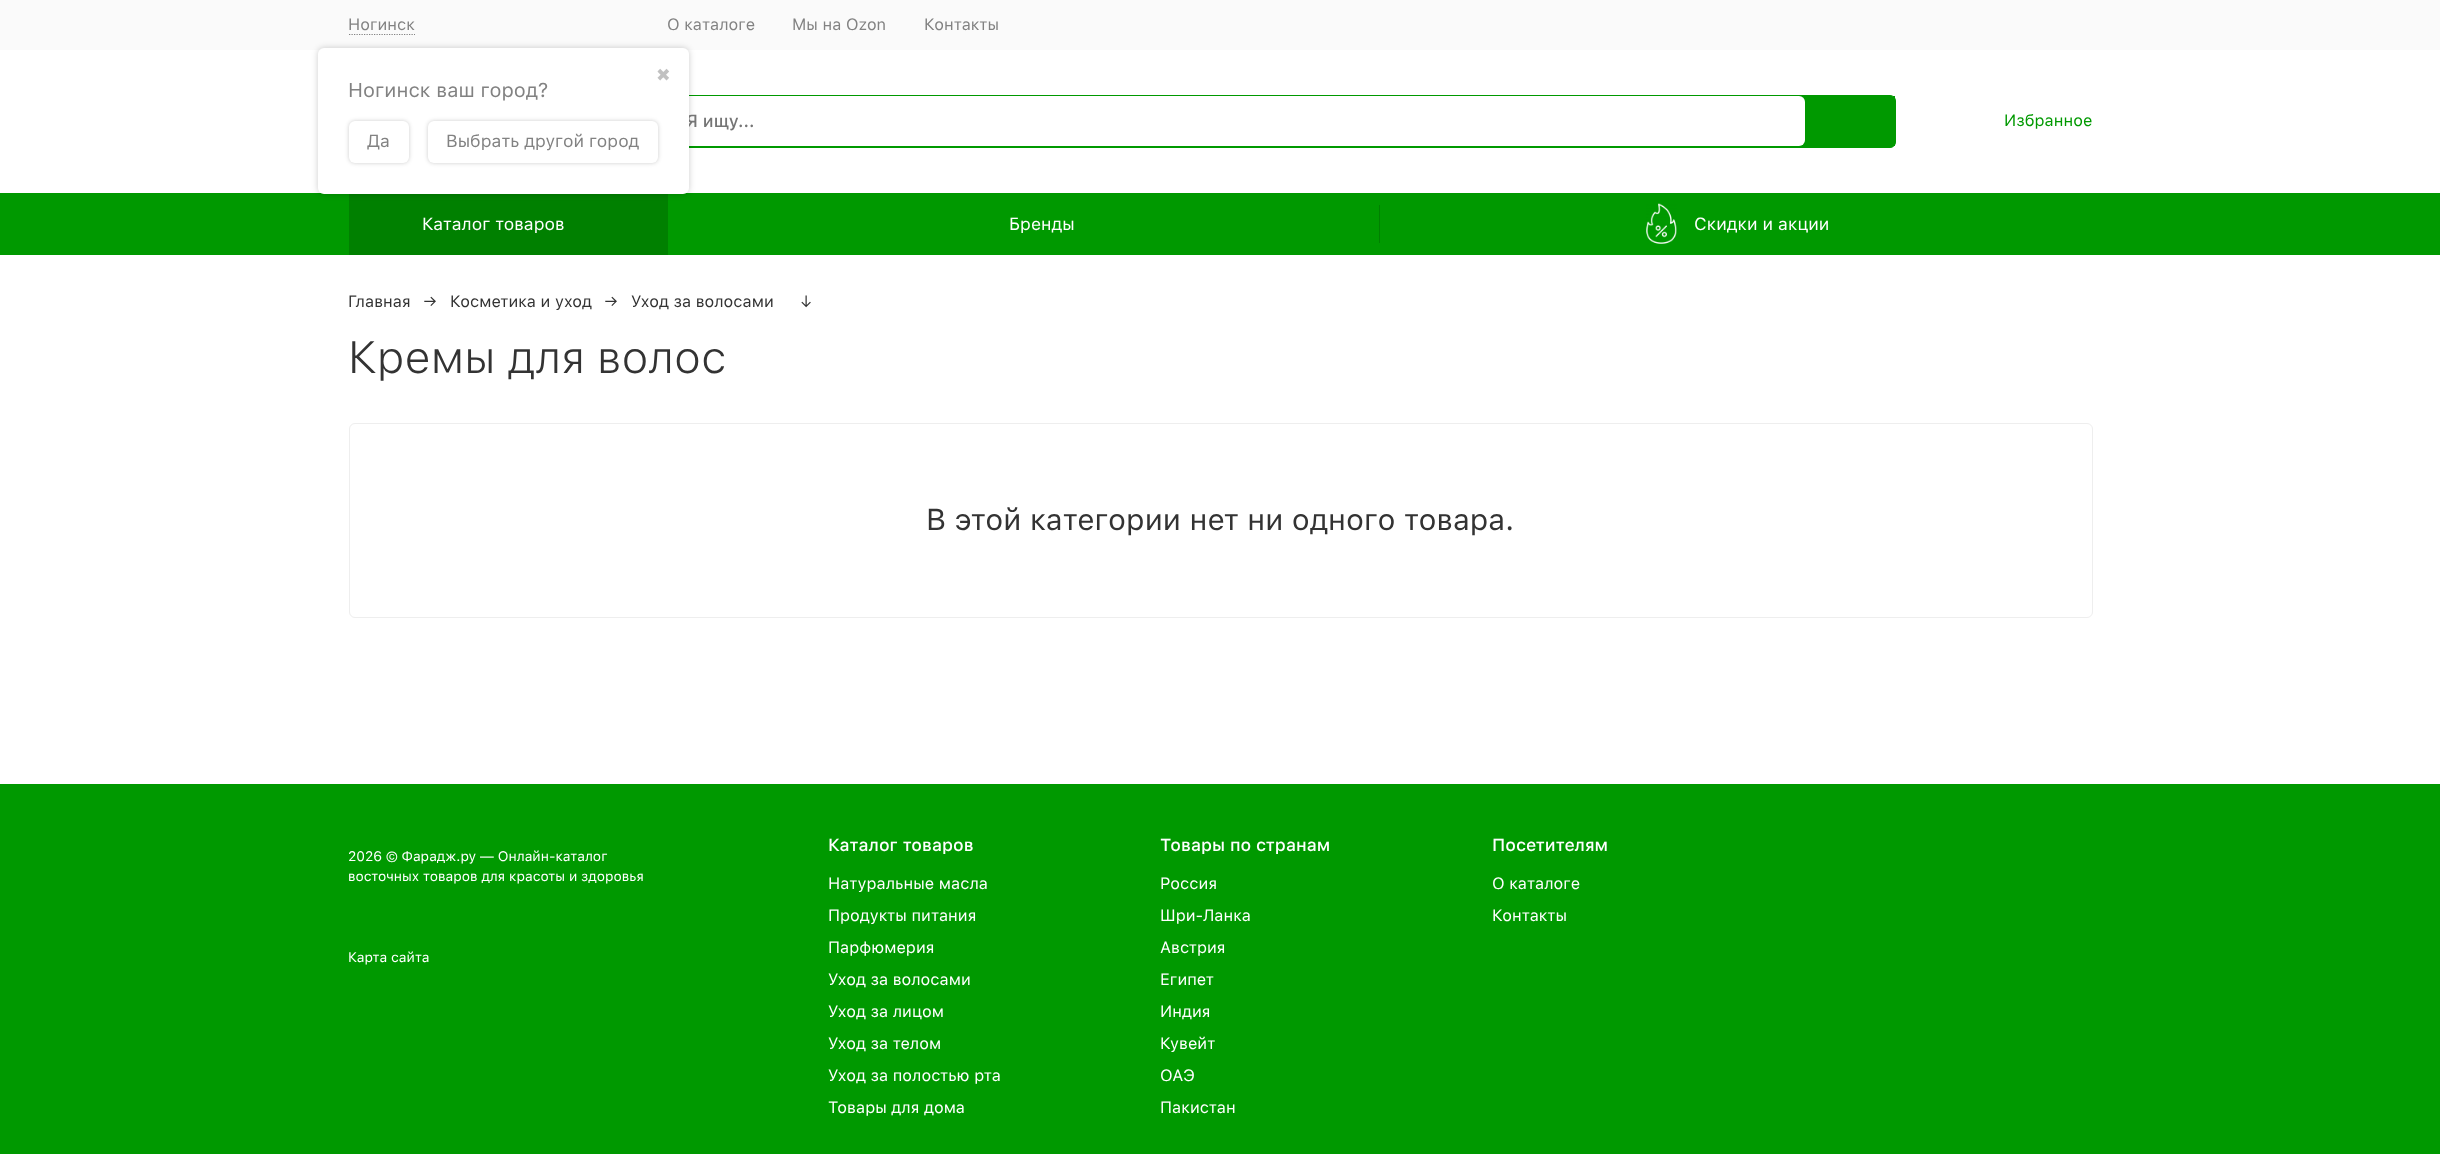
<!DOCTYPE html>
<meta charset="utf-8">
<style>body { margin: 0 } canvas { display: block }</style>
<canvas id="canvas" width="2440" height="1154"></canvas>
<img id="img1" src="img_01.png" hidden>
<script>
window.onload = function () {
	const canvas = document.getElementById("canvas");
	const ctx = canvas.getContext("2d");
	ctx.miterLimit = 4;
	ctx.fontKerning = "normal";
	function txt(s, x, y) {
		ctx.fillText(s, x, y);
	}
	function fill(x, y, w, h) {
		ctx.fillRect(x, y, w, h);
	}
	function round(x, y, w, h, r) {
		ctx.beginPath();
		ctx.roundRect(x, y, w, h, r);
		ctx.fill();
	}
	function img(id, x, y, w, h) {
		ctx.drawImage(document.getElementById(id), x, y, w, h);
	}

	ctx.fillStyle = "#FFFFFF";
	fill(0, 0, 2440, 1154);
	ctx.fillStyle = "#FAFAFA";
	fill(0, 0, 2440, 50);
	ctx.beginPath();
	ctx.moveTo(349, 34.5);
	ctx.lineTo(415, 34.5);
	ctx.strokeStyle = "#828282";
	ctx.lineWidth = 1.2;
	ctx.setLineDash([1.25, 1.25]);
	ctx.stroke();
	ctx.fillStyle = "#009900";
	ctx.beginPath();
	ctx.roundRect(668.5, 95.5, 1227, 52, 5.5);
	ctx.fill();
	ctx.strokeStyle = "#009900";
	ctx.lineWidth = 1;
	ctx.setLineDash([]);
	ctx.stroke();
	ctx.fillStyle = "#FFFFFF";
	round(669, 96, 1136, 50, 6);
	ctx.fillStyle = "#009900";
	fill(0, 193, 2440, 62);
	ctx.fillStyle = "#008000";
	fill(349, 194, 319, 61);
	ctx.fillStyle = "rgba(0, 0, 0, 0.2)";
	ctx.filter = "blur(3px)";
	ctx.beginPath();
	ctx.roundRect(318, 48, 371, 146, 6);
	ctx.fill();
	ctx.filter = "none";
	ctx.fillStyle = "#009900";
	fill(1893, 96, 2, 50);
	ctx.fillStyle = "#008000";
	fill(1379, 205, 1, 38);
	img("img1", 1646, 203, 31, 41);
	ctx.beginPath();
	ctx.roundRect(349.5, 423.5, 1743, 194, 5.5);
	ctx.strokeStyle = "#EEEEEE";
	ctx.stroke();
	ctx.fillStyle = "#009900";
	fill(0, 784, 2440, 370);
	ctx.font = "16.25px SF Pro Text";
	ctx.fillStyle = "#828282";
	txt("Ногинск", 348, 30);
	txt("О каталоге", 667, 30);
	txt("Мы на Ozon", 792, 30);
	txt("Контакты", 924, 30);
	ctx.font = "500 17.5px SF Pro Text";
	ctx.fillStyle = "#757575";
	txt("Я ищу...", 686, 127);
	ctx.fillStyle = "#FFFFFF";
	round(318, 48, 371, 146, 6);
	ctx.font = "17.5px DejaVu Sans";
	ctx.fillStyle = "#C1C1C1";
	txt("✖", 656, 81);
	ctx.fillStyle = "rgba(0, 0, 0, 0.2)";
	ctx.filter = "blur(2px)";
	ctx.beginPath();
	ctx.roundRect(428, 121, 230, 42, 6);
	ctx.fill();
	ctx.filter = "none";
	ctx.fillStyle = "#FFFFFF";
	round(428, 121, 230, 42, 6);
	ctx.font = "17.5px SF Pro Text";
	ctx.fillStyle = "#828282";
	txt("Выбрать другой город", 446, 147);
	ctx.fillStyle = "rgba(0, 0, 0, 0.2)";
	ctx.filter = "blur(2px)";
	ctx.beginPath();
	ctx.roundRect(349, 121, 60, 42, 6);
	ctx.fill();
	ctx.filter = "none";
	ctx.fillStyle = "#FFFFFF";
	round(349, 121, 60, 42, 6);
	ctx.fillStyle = "#828282";
	txt("Да", 367, 147);
	ctx.font = "20px SF Pro Text";
	txt("Ногинск ваш город?", 348, 97);
	ctx.font = "16.25px SF Pro Text";
	ctx.fillStyle = "#009900";
	txt("Избранное", 2004, 126);
	ctx.font = "17.5px SF Pro Text";
	ctx.fillStyle = "#FFFFFF";
	txt("Каталог товаров", 422, 230);
	txt("Бренды", 1009, 230);
	txt("Скидки и акции", 1694, 230);
	ctx.font = "16.25px SF Pro Text";
	ctx.fillStyle = "#333333";
	txt("Главная", 348, 307);
	txt("→", 423, 307);
	txt("Косметика и уход", 450, 307);
	txt("→", 604, 307);
	txt("Уход за волосами", 631, 307);
	txt("↓", 799, 307);
	ctx.font = "300 45px SF Pro Text";
	txt("Кремы для волос", 348, 373);
	ctx.font = "30px SF Pro Text";
	txt("В этой категории нет ни одного товара.", 926, 530);
	ctx.font = "13.75px SF Pro Text";
	ctx.fillStyle = "#FFFFFF";
	txt("2026 © Фарадж.ру — Онлайн-каталог", 348, 861);
	txt("восточных товаров для красоты и здоровья", 348, 881);
	txt("Карта сайта", 348, 962);
	ctx.font = "500 17.5px SF Pro Text";
	txt("Каталог товаров", 828, 851);
	ctx.font = "16.25px SF Pro Text";
	txt("Натуральные масла", 828, 889);
	txt("Продукты питания", 828, 921);
	txt("Парфюмерия", 828, 953);
	txt("Уход за волосами", 828, 985);
	txt("Уход за лицом", 828, 1017);
	txt("Уход за телом", 828, 1049);
	txt("Уход за полостью рта", 828, 1081);
	txt("Товары для дома", 828, 1113);
	ctx.font = "500 17.5px SF Pro Text";
	txt("Товары по странам", 1160, 851);
	ctx.font = "16.25px SF Pro Text";
	txt("Россия", 1160, 889);
	txt("Шри-Ланка", 1160, 921);
	txt("Австрия", 1160, 953);
	txt("Египет", 1160, 985);
	txt("Индия", 1160, 1017);
	txt("Кувейт", 1160, 1049);
	txt("ОАЭ", 1160, 1081);
	txt("Пакистан", 1160, 1113);
	ctx.font = "500 17.5px SF Pro Text";
	txt("Посетителям", 1492, 851);
	ctx.font = "16.25px SF Pro Text";
	txt("О каталоге", 1492, 889);
	txt("Контакты", 1492, 921);
};
</script>
